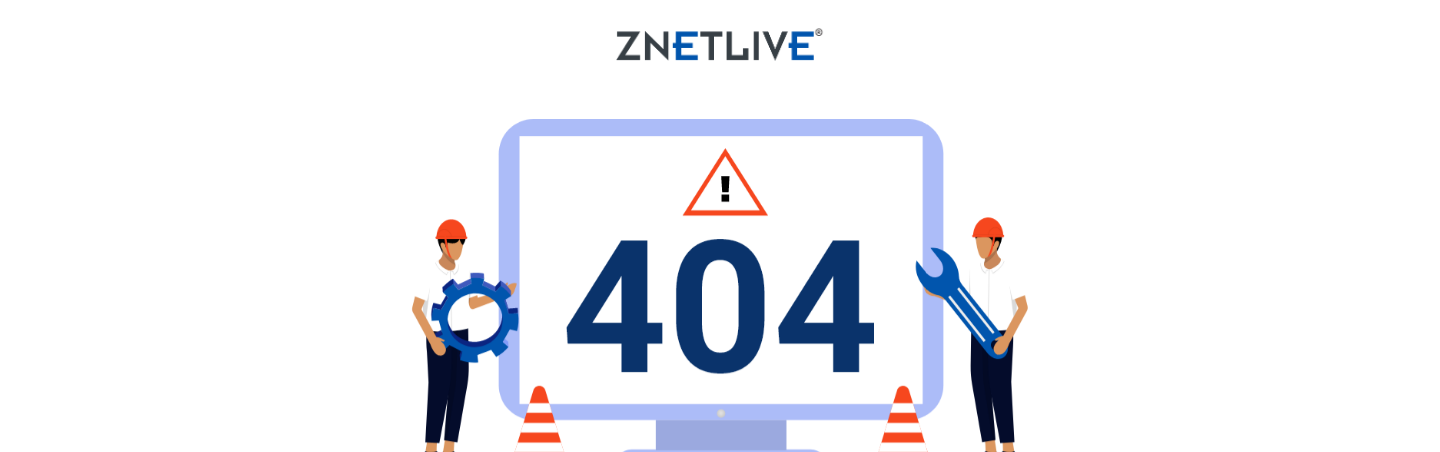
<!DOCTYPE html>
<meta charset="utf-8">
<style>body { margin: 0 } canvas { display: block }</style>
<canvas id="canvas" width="1440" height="452"></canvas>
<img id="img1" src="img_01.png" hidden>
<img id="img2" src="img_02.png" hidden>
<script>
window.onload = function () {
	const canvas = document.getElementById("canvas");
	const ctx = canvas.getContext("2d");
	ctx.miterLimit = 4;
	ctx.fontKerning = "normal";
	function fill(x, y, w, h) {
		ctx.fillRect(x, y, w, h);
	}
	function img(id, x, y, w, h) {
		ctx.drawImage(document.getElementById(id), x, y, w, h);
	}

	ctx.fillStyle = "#FFFFFF";
	fill(0, 0, 1440, 452);
	img("img1", 616, 28, 208, 33);
	img("img2", 411, 119, 617, 333);
};
</script>
